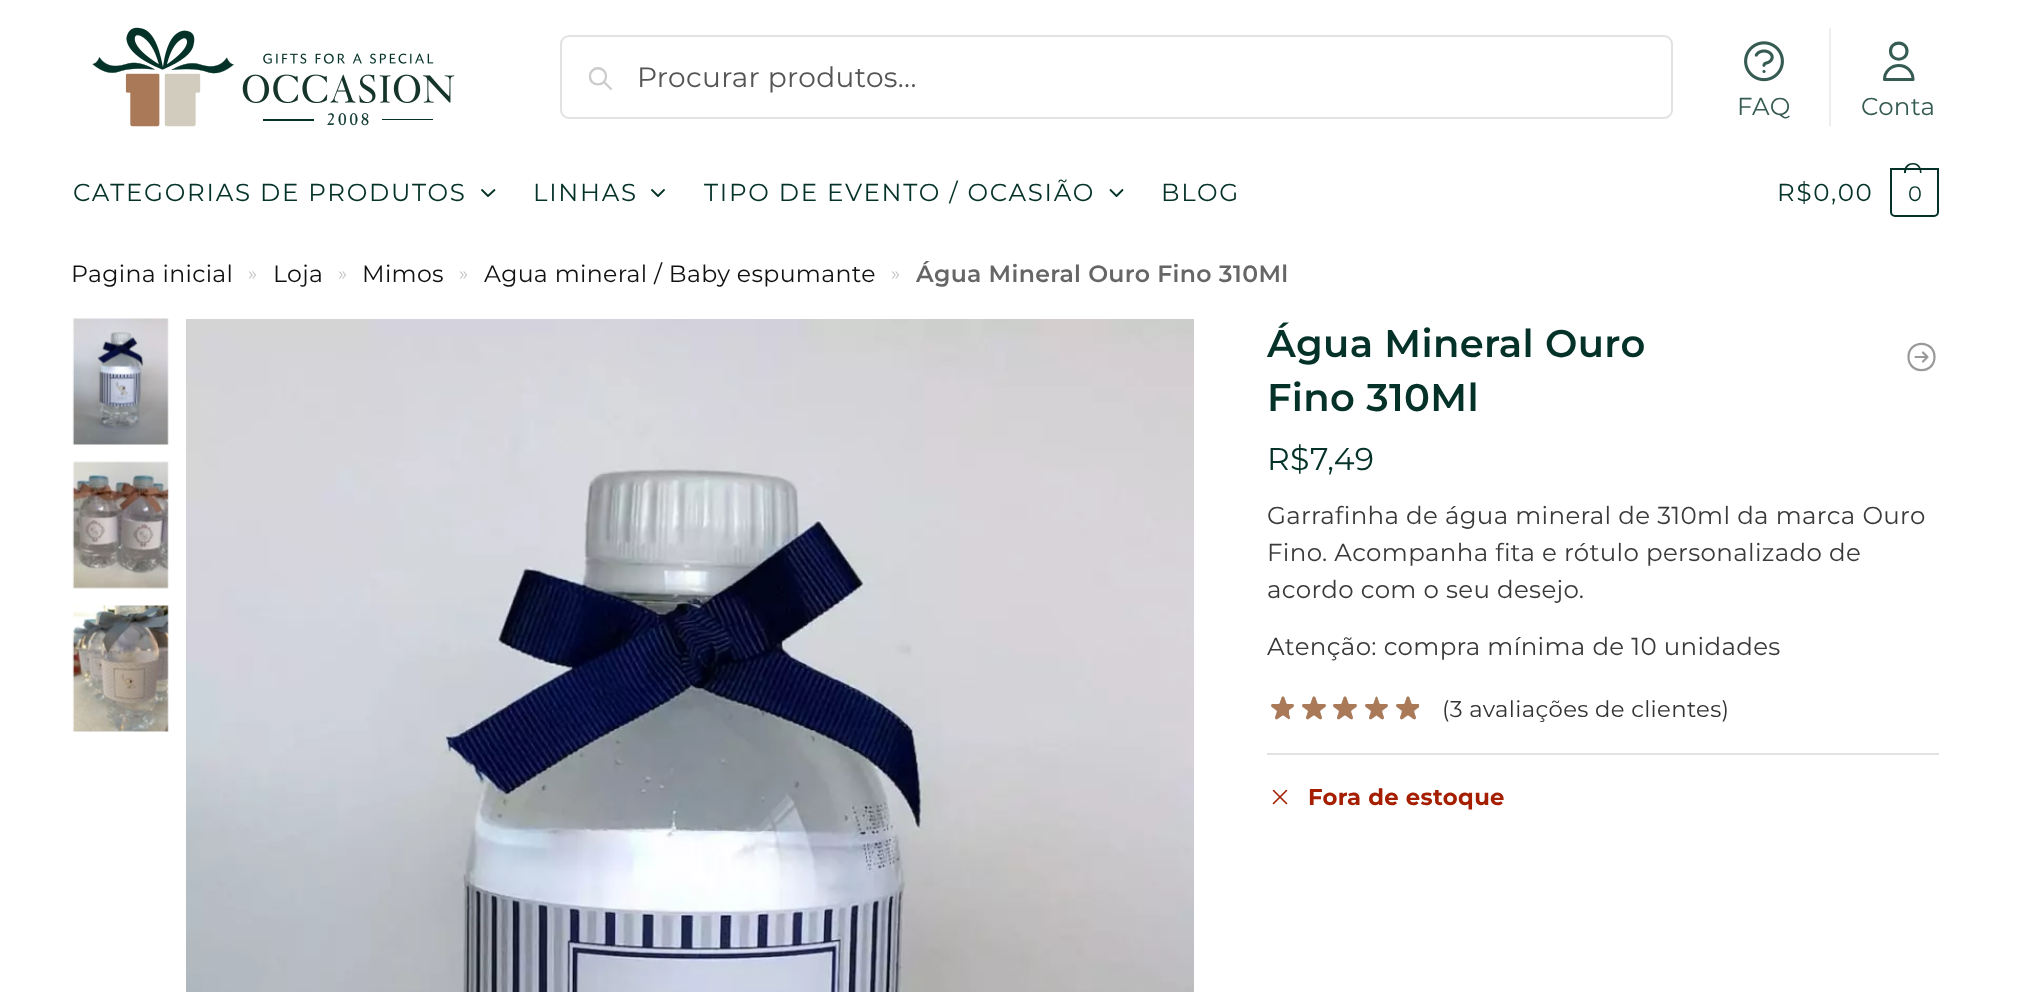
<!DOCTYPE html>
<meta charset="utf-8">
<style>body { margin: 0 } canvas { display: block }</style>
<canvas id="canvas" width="2038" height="992"></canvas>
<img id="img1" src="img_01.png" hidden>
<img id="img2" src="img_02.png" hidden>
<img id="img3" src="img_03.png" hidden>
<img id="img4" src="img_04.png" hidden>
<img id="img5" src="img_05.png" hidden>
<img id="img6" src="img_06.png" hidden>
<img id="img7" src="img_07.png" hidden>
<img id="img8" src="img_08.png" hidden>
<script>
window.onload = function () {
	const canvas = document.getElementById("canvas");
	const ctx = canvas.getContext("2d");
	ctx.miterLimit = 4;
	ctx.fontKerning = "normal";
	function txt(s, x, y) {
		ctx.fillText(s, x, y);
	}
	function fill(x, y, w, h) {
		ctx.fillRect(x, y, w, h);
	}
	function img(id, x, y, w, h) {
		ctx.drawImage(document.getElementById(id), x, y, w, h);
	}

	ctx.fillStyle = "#FFFFFF";
	fill(0, 0, 2038, 992);
	img("img1", 92, 27, 363, 100);
	ctx.beginPath();
	ctx.roundRect(561, 36, 1111, 82, 8);
	ctx.strokeStyle = "#E2E2E2";
	ctx.lineWidth = 2;
	ctx.stroke();
	ctx.beginPath();
	ctx.moveTo(611, 89);
	ctx.lineTo(604, 82);
	ctx.moveTo(606, 76.5);
	ctx.bezierCurveTo(606, 87, 590, 87, 590, 76.5);
	ctx.bezierCurveTo(590, 65.5, 606, 65.5, 606, 76.5);
	ctx.closePath();
	ctx.strokeStyle = "#CCCCCC";
	ctx.lineWidth = 2.3;
	ctx.lineCap = "round";
	ctx.lineJoin = "round";
	ctx.stroke();
	img("img2", 1744, 41, 40, 41);
	ctx.fillStyle = "#EEEEEE";
	fill(1829, 28, 2, 98);
	ctx.beginPath();
	ctx.moveTo(1907, 51);
	ctx.bezierCurveTo(1907, 62, 1890.5, 62, 1890.5, 51);
	ctx.bezierCurveTo(1890.5, 40.5, 1907, 40.5, 1907, 51);
	ctx.closePath();
	ctx.moveTo(1899, 65.5);
	ctx.bezierCurveTo(1891, 65.5, 1884.5, 71.5, 1884.5, 79.5);
	ctx.lineTo(1913, 79.5);
	ctx.bezierCurveTo(1913, 71.5, 1906.5, 65.5, 1899, 65.5);
	ctx.closePath();
	ctx.strokeStyle = "#365B53";
	ctx.lineWidth = 3.1;
	ctx.stroke();
	ctx.beginPath();
	ctx.moveTo(494.5, 190);
	ctx.lineTo(488, 196);
	ctx.lineTo(482, 190);
	ctx.strokeStyle = "#043228";
	ctx.lineWidth = 1.8;
	ctx.stroke();
	ctx.beginPath();
	ctx.moveTo(664, 190);
	ctx.lineTo(658, 196);
	ctx.lineTo(652, 190);
	ctx.stroke();
	ctx.beginPath();
	ctx.moveTo(1122.5, 190);
	ctx.lineTo(1116.5, 196);
	ctx.lineTo(1110.5, 190);
	ctx.stroke();
	ctx.beginPath();
	ctx.roundRect(1891, 169, 47, 47, [0, 0, 4, 4]);
	ctx.lineWidth = 2;
	ctx.lineJoin = "miter";
	ctx.stroke();
	ctx.fillStyle = "#043228";
	ctx.beginPath();
	ctx.moveTo(1913, 163);
	ctx.bezierCurveTo(1919, 163, 1921.5, 167.5, 1921.5, 173);
	ctx.lineTo(1904, 173);
	ctx.bezierCurveTo(1904, 167.5, 1906.5, 163, 1913, 163);
	ctx.closePath();
	ctx.moveTo(1913, 164.5);
	ctx.bezierCurveTo(1918, 164.5, 1920, 169, 1920, 173);
	ctx.lineTo(1906, 173);
	ctx.bezierCurveTo(1906, 169, 1907.5, 164.5, 1913, 164.5);
	ctx.closePath();
	ctx.fill("evenodd");
	img("img3", 72, 318, 97, 127);
	img("img4", 72, 461, 97, 128);
	img("img5", 72, 605, 97, 127);
	img("img6", 186, 319, 1008, 673);
	ctx.beginPath();
	ctx.moveTo(1923, 352.5);
	ctx.lineTo(1927.5, 357);
	ctx.moveTo(1927.5, 357);
	ctx.lineTo(1923, 361.5);
	ctx.moveTo(1927.5, 357);
	ctx.lineTo(1915.5, 357);
	ctx.moveTo(1934.5, 357);
	ctx.bezierCurveTo(1934.5, 374.5, 1908.5, 374.5, 1908.5, 357);
	ctx.bezierCurveTo(1908.5, 339.5, 1934.5, 339.5, 1934.5, 357);
	ctx.closePath();
	ctx.strokeStyle = "#999999";
	ctx.lineWidth = 2.2;
	ctx.lineJoin = "round";
	ctx.stroke();
	img("img7", 1271, 696, 148, 24);
	img("img8", 1271, 696, 148, 24);
	ctx.fillStyle = "#E2E2E2";
	fill(1267, 753, 672, 2);
	ctx.beginPath();
	ctx.moveTo(1273.5, 803.5);
	ctx.lineTo(1286.5, 790.5);
	ctx.moveTo(1273.5, 790.5);
	ctx.lineTo(1286.5, 803.5);
	ctx.strokeStyle = "#A61E00";
	ctx.lineWidth = 1.6;
	ctx.stroke();
	ctx.letterSpacing = "0.35px";
	ctx.font = "28px Montserrat";
	ctx.fillStyle = "#555555";
	txt("Procurar produtos...", 637, 87);
	ctx.font = "24.5px Montserrat";
	ctx.fillStyle = "#365B53";
	txt("FAQ", 1737, 115);
	txt("Conta", 1861, 115);
	ctx.letterSpacing = "1.75px";
	ctx.fillStyle = "#043228";
	txt("CATEGORIAS DE PRODUTOS", 73, 201);
	txt("LINHAS", 533, 201);
	txt("TIPO DE EVENTO / OCASIÃO", 704, 201);
	txt("BLOG", 1161, 201);
	txt("R$0,00", 1777, 201);
	ctx.letterSpacing = "-1px";
	ctx.font = "21px Montserrat";
	txt("0", 1908, 201);
	ctx.letterSpacing = "0.35px";
	ctx.font = "23.6px Montserrat";
	ctx.fillStyle = "#111111";
	txt("Pagina inicial", 71, 282);
	ctx.font = "19px Montserrat";
	ctx.fillStyle = "#C2C2C2";
	txt("»", 248, 280);
	ctx.font = "23.6px Montserrat";
	ctx.fillStyle = "#111111";
	txt("Loja", 273, 282);
	ctx.font = "19px Montserrat";
	ctx.fillStyle = "#C2C2C2";
	txt("»", 338, 280);
	ctx.font = "23.6px Montserrat";
	ctx.fillStyle = "#111111";
	txt("Mimos", 362, 282);
	ctx.font = "19px Montserrat";
	ctx.fillStyle = "#C2C2C2";
	txt("»", 459, 280);
	ctx.font = "23.6px Montserrat";
	ctx.fillStyle = "#111111";
	txt("Agua mineral / Baby espumante", 484, 282);
	ctx.font = "19px Montserrat";
	ctx.fillStyle = "#C2C2C2";
	txt("»", 891, 280);
	ctx.font = "600 23.6px Montserrat";
	ctx.fillStyle = "#666666";
	txt("Água Mineral Ouro Fino 310Ml", 916, 282);
	ctx.font = "600 38.5px Montserrat";
	ctx.fillStyle = "#043228";
	txt("Água Mineral Ouro", 1267, 357);
	txt("Fino 310Ml", 1267, 411);
	ctx.font = "31.5px Montserrat";
	txt("R$", 1267, 470);
	txt("7,49", 1310, 470);
	ctx.font = "24.5px Montserrat";
	ctx.fillStyle = "#3A3A3A";
	txt("Garrafinha de água mineral de 310ml da marca Ouro", 1267, 524);
	txt("Fino. Acompanha fita e rótulo personalizado de", 1267, 561);
	txt("acordo com o seu desejo.", 1267, 598);
	txt("Atenção: compra mínima de 10 unidades", 1267, 655);
	ctx.font = "22.75px Montserrat";
	ctx.fillStyle = "#333333";
	txt("(3 avaliações de clientes)", 1442, 717);
	ctx.font = "bold 22.75px Montserrat";
	ctx.fillStyle = "#A61E00";
	txt("Fora de estoque", 1308, 805);
};
</script>
